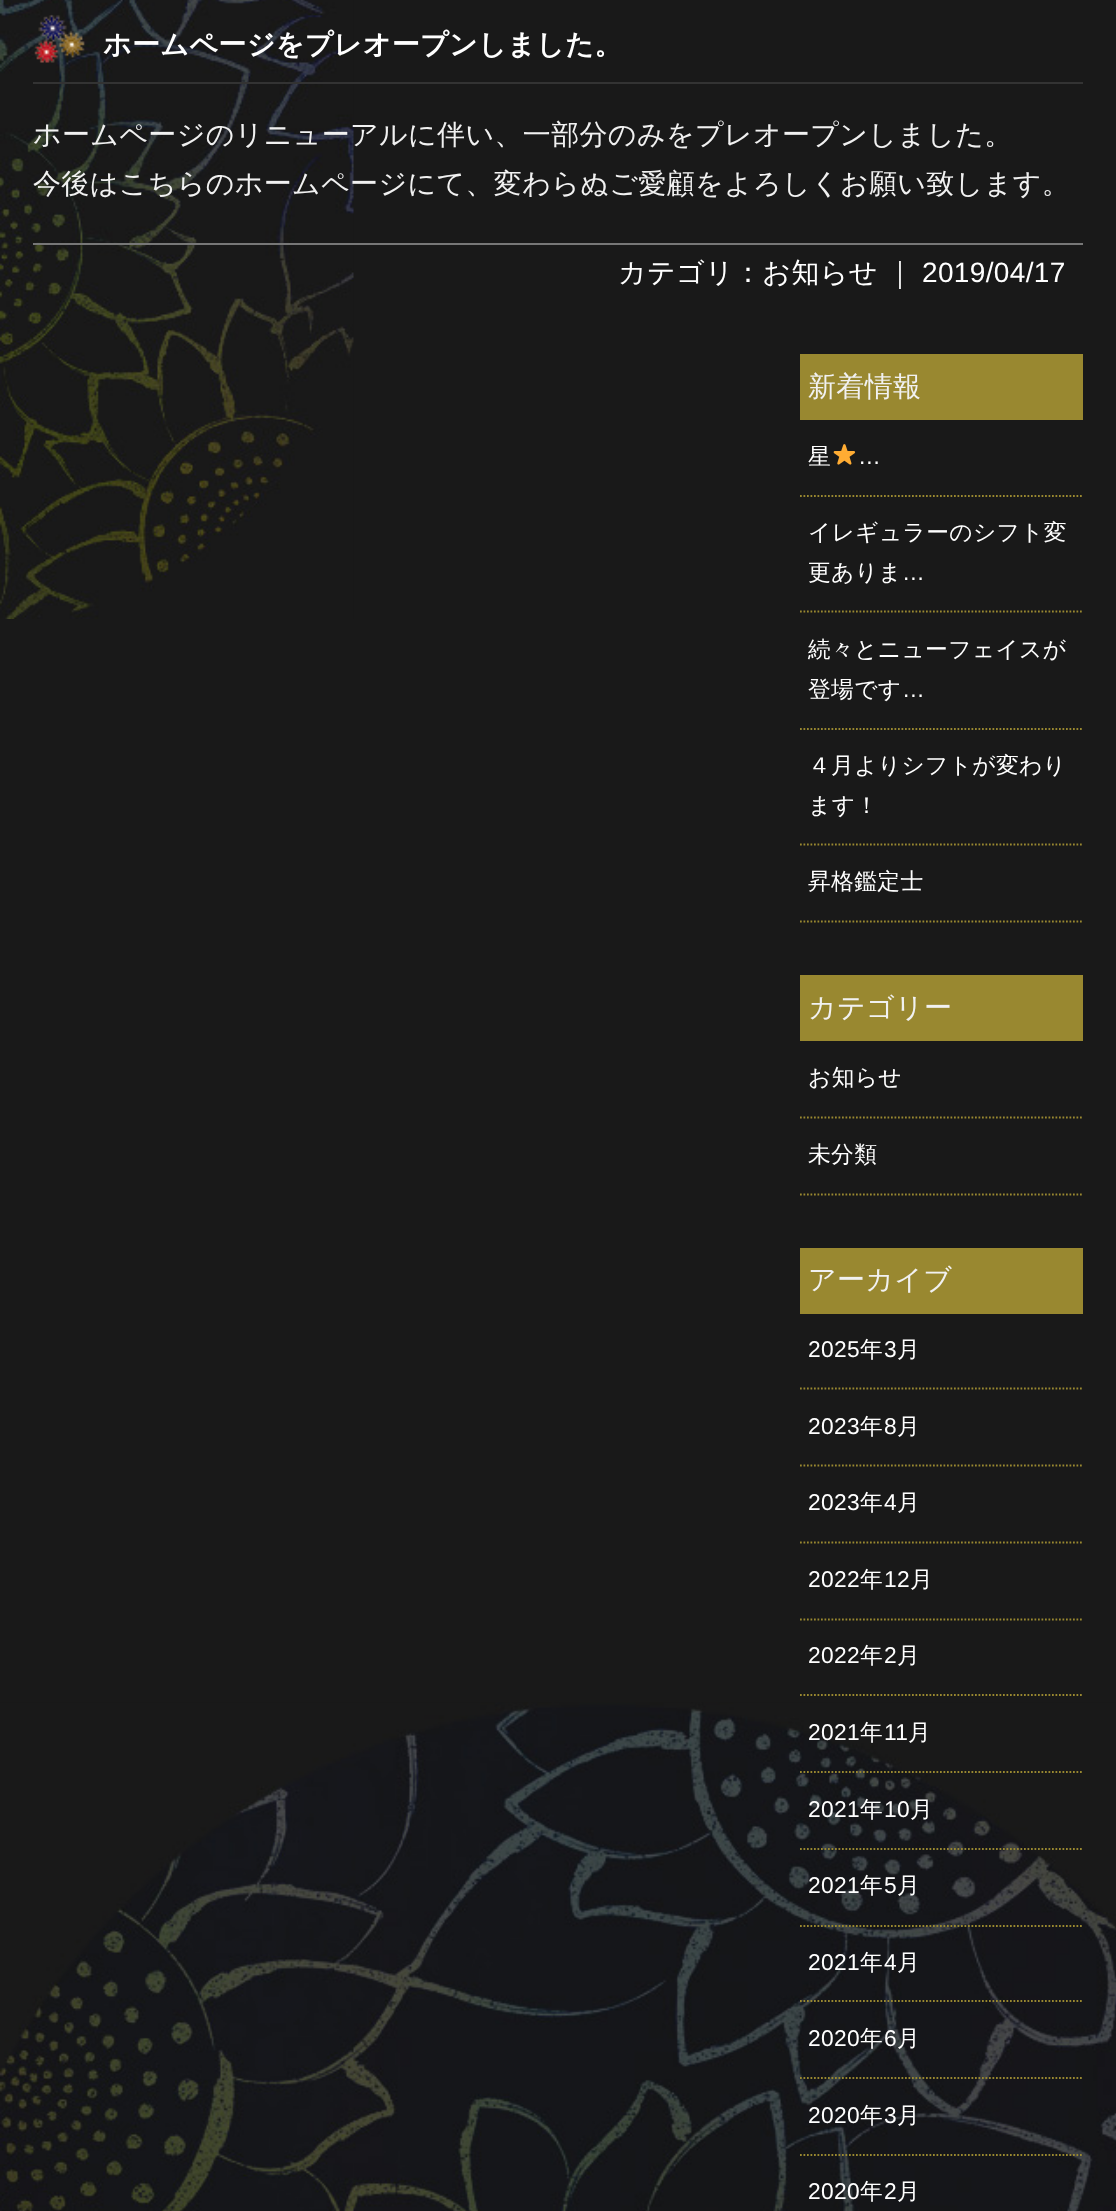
<!DOCTYPE html>
<meta charset="utf-8">
<style>body { margin: 0 } canvas { display: block }</style>
<canvas id="canvas" width="1116" height="2211"></canvas>
<img id="img1" src="img_01.png" hidden>
<img id="img2" src="img_02.png" hidden>
<img id="img3" src="img_03.png" hidden>
<script>
window.onload = function () {
	const canvas = document.getElementById("canvas");
	const ctx = canvas.getContext("2d");
	ctx.miterLimit = 4;
	ctx.fontKerning = "normal";
	function txt(s, x, y) {
		ctx.fillText(s, x, y);
	}
	function fill(x, y, w, h) {
		ctx.fillRect(x, y, w, h);
	}
	function img(id, x, y, w, h) {
		ctx.drawImage(document.getElementById(id), x, y, w, h);
	}

	ctx.fillStyle = "#191919";
	fill(0, 0, 1116, 2211);
	img("img1", 0, 0, 1116, 2211);
	img("img2", 34, 14, 51, 49);
	ctx.fillStyle = "#333333";
	fill(33, 82, 1050, 2);
	ctx.fillStyle = "#777777";
	fill(33, 243, 1050, 2);
	ctx.fillStyle = "#998830";
	fill(800, 354, 283, 66);
	ctx.beginPath();
	ctx.moveTo(800, 496);
	ctx.lineTo(1083, 496);
	ctx.strokeStyle = "#998830";
	ctx.lineWidth = 1.8;
	ctx.setLineDash([1.75, 1.75]);
	ctx.stroke();
	img("img3", 833, 444, 23, 21);
	ctx.beginPath();
	ctx.moveTo(800, 611.5);
	ctx.lineTo(1083, 611.5);
	ctx.stroke();
	ctx.beginPath();
	ctx.moveTo(800, 729);
	ctx.lineTo(1083, 729);
	ctx.stroke();
	ctx.beginPath();
	ctx.moveTo(800, 844.5);
	ctx.lineTo(1083, 844.5);
	ctx.stroke();
	ctx.beginPath();
	ctx.moveTo(800, 921.5);
	ctx.lineTo(1083, 921.5);
	ctx.stroke();
	fill(800, 975, 283, 66);
	ctx.beginPath();
	ctx.moveTo(800, 1117.5);
	ctx.lineTo(1083, 1117.5);
	ctx.stroke();
	ctx.beginPath();
	ctx.moveTo(800, 1194.5);
	ctx.lineTo(1083, 1194.5);
	ctx.stroke();
	fill(800, 1248, 283, 66);
	ctx.beginPath();
	ctx.moveTo(800, 1388.5);
	ctx.lineTo(1083, 1388.5);
	ctx.stroke();
	ctx.beginPath();
	ctx.moveTo(800, 1465.5);
	ctx.lineTo(1083, 1465.5);
	ctx.stroke();
	ctx.beginPath();
	ctx.moveTo(800, 1542.5);
	ctx.lineTo(1083, 1542.5);
	ctx.stroke();
	ctx.beginPath();
	ctx.moveTo(800, 1619.5);
	ctx.lineTo(1083, 1619.5);
	ctx.stroke();
	ctx.beginPath();
	ctx.moveTo(800, 1695);
	ctx.lineTo(1083, 1695);
	ctx.stroke();
	ctx.beginPath();
	ctx.moveTo(800, 1772);
	ctx.lineTo(1083, 1772);
	ctx.stroke();
	ctx.beginPath();
	ctx.moveTo(800, 1849);
	ctx.lineTo(1083, 1849);
	ctx.stroke();
	ctx.beginPath();
	ctx.moveTo(800, 1926);
	ctx.lineTo(1083, 1926);
	ctx.stroke();
	ctx.beginPath();
	ctx.moveTo(800, 2001);
	ctx.lineTo(1083, 2001);
	ctx.stroke();
	ctx.beginPath();
	ctx.moveTo(800, 2078);
	ctx.lineTo(1083, 2078);
	ctx.stroke();
	ctx.beginPath();
	ctx.moveTo(800, 2155);
	ctx.lineTo(1083, 2155);
	ctx.stroke();
	ctx.letterSpacing = "0.35px";
	ctx.font = "bold 28px WenQuanYi Zen Hei";
	ctx.fillStyle = "#FFFFFF";
	txt("ホームページをプレオープンしました。", 103, 54);
	ctx.font = "500 28px WenQuanYi Zen Hei";
	ctx.fillStyle = "#F1F1F1";
	txt("ホームページのリニューアルに伴い、一部分のみをプレオープンしました。", 33, 144);
	txt("今後はこちらのホームページにて、変わらぬご愛顧をよろしくお願い致します。", 33, 193);
	ctx.fillStyle = "#FFFFFF";
	txt("カテゴリ：お知らせ", 618, 282);
	txt("｜", 886, 282);
	ctx.font = "28px Liberation Sans";
	txt("2019/04/17", 922, 282);
	ctx.font = "500 28px WenQuanYi Zen Hei";
	ctx.fillStyle = "#F1F1F1";
	txt("新着情報", 808, 396);
	ctx.font = "500 22.75px WenQuanYi Zen Hei";
	ctx.fillStyle = "#FFFFFF";
	txt("星", 808, 464);
	ctx.font = "22.75px Liberation Sans";
	txt("…", 858, 464);
	ctx.font = "500 22.75px WenQuanYi Zen Hei";
	txt("イレギュラーのシフト変", 808, 540);
	txt("更ありま", 808, 580);
	ctx.font = "22.75px Liberation Sans";
	txt("…", 902, 580);
	ctx.font = "500 22.75px WenQuanYi Zen Hei";
	txt("続々とニューフェイスが", 808, 657);
	txt("登場です", 808, 697);
	ctx.font = "22.75px Liberation Sans";
	txt("…", 902, 697);
	ctx.font = "500 22.75px WenQuanYi Zen Hei";
	txt("４月よりシフトが変わり", 808, 773);
	txt("ます！", 808, 813);
	txt("昇格鑑定士", 808, 889);
	ctx.font = "500 28px WenQuanYi Zen Hei";
	ctx.fillStyle = "#F1F1F1";
	txt("カテゴリー", 808, 1017);
	ctx.font = "500 22.75px WenQuanYi Zen Hei";
	ctx.fillStyle = "#FFFFFF";
	txt("お知らせ", 808, 1085);
	txt("未分類", 808, 1162);
	ctx.font = "500 28px WenQuanYi Zen Hei";
	ctx.fillStyle = "#F1F1F1";
	txt("アーカイブ", 808, 1289);
	ctx.font = "22.75px Liberation Sans";
	ctx.fillStyle = "#FFFFFF";
	txt("2025", 808, 1357);
	ctx.font = "500 22.75px WenQuanYi Zen Hei";
	txt("年", 860, 1357);
	ctx.font = "22.75px Liberation Sans";
	txt("3", 884, 1357);
	ctx.font = "500 22.75px WenQuanYi Zen Hei";
	txt("月", 897, 1357);
	ctx.font = "22.75px Liberation Sans";
	txt("2023", 808, 1434);
	ctx.font = "500 22.75px WenQuanYi Zen Hei";
	txt("年", 860, 1434);
	ctx.font = "22.75px Liberation Sans";
	txt("8", 884, 1434);
	ctx.font = "500 22.75px WenQuanYi Zen Hei";
	txt("月", 897, 1434);
	ctx.font = "22.75px Liberation Sans";
	txt("2023", 808, 1510);
	ctx.font = "500 22.75px WenQuanYi Zen Hei";
	txt("年", 860, 1510);
	ctx.font = "22.75px Liberation Sans";
	txt("4", 884, 1510);
	ctx.font = "500 22.75px WenQuanYi Zen Hei";
	txt("月", 897, 1510);
	ctx.font = "22.75px Liberation Sans";
	txt("2022", 808, 1587);
	ctx.font = "500 22.75px WenQuanYi Zen Hei";
	txt("年", 860, 1587);
	ctx.font = "22.75px Liberation Sans";
	txt("12", 884, 1587);
	ctx.font = "500 22.75px WenQuanYi Zen Hei";
	txt("月", 910, 1587);
	ctx.font = "22.75px Liberation Sans";
	txt("2022", 808, 1663);
	ctx.font = "500 22.75px WenQuanYi Zen Hei";
	txt("年", 860, 1663);
	ctx.font = "22.75px Liberation Sans";
	txt("2", 884, 1663);
	ctx.font = "500 22.75px WenQuanYi Zen Hei";
	txt("月", 897, 1663);
	ctx.font = "22.75px Liberation Sans";
	txt("2021", 808, 1740);
	ctx.font = "500 22.75px WenQuanYi Zen Hei";
	txt("年", 860, 1740);
	ctx.font = "22.75px Liberation Sans";
	txt("11", 884, 1740);
	ctx.font = "500 22.75px WenQuanYi Zen Hei";
	txt("月", 908, 1740);
	ctx.font = "22.75px Liberation Sans";
	txt("2021", 808, 1817);
	ctx.font = "500 22.75px WenQuanYi Zen Hei";
	txt("年", 860, 1817);
	ctx.font = "22.75px Liberation Sans";
	txt("10", 884, 1817);
	ctx.font = "500 22.75px WenQuanYi Zen Hei";
	txt("月", 910, 1817);
	ctx.font = "22.75px Liberation Sans";
	txt("2021", 808, 1893);
	ctx.font = "500 22.75px WenQuanYi Zen Hei";
	txt("年", 860, 1893);
	ctx.font = "22.75px Liberation Sans";
	txt("5", 884, 1893);
	ctx.font = "500 22.75px WenQuanYi Zen Hei";
	txt("月", 897, 1893);
	ctx.font = "22.75px Liberation Sans";
	txt("2021", 808, 1970);
	ctx.font = "500 22.75px WenQuanYi Zen Hei";
	txt("年", 860, 1970);
	ctx.font = "22.75px Liberation Sans";
	txt("4", 884, 1970);
	ctx.font = "500 22.75px WenQuanYi Zen Hei";
	txt("月", 897, 1970);
	ctx.font = "22.75px Liberation Sans";
	txt("2020", 808, 2046);
	ctx.font = "500 22.75px WenQuanYi Zen Hei";
	txt("年", 860, 2046);
	ctx.font = "22.75px Liberation Sans";
	txt("6", 884, 2046);
	ctx.font = "500 22.75px WenQuanYi Zen Hei";
	txt("月", 897, 2046);
	ctx.font = "22.75px Liberation Sans";
	txt("2020", 808, 2123);
	ctx.font = "500 22.75px WenQuanYi Zen Hei";
	txt("年", 860, 2123);
	ctx.font = "22.75px Liberation Sans";
	txt("3", 884, 2123);
	ctx.font = "500 22.75px WenQuanYi Zen Hei";
	txt("月", 897, 2123);
	ctx.font = "22.75px Liberation Sans";
	txt("2020", 808, 2199);
	ctx.font = "500 22.75px WenQuanYi Zen Hei";
	txt("年", 860, 2199);
	ctx.font = "22.75px Liberation Sans";
	txt("2", 884, 2199);
	ctx.font = "500 22.75px WenQuanYi Zen Hei";
	txt("月", 897, 2199);
};
</script>
